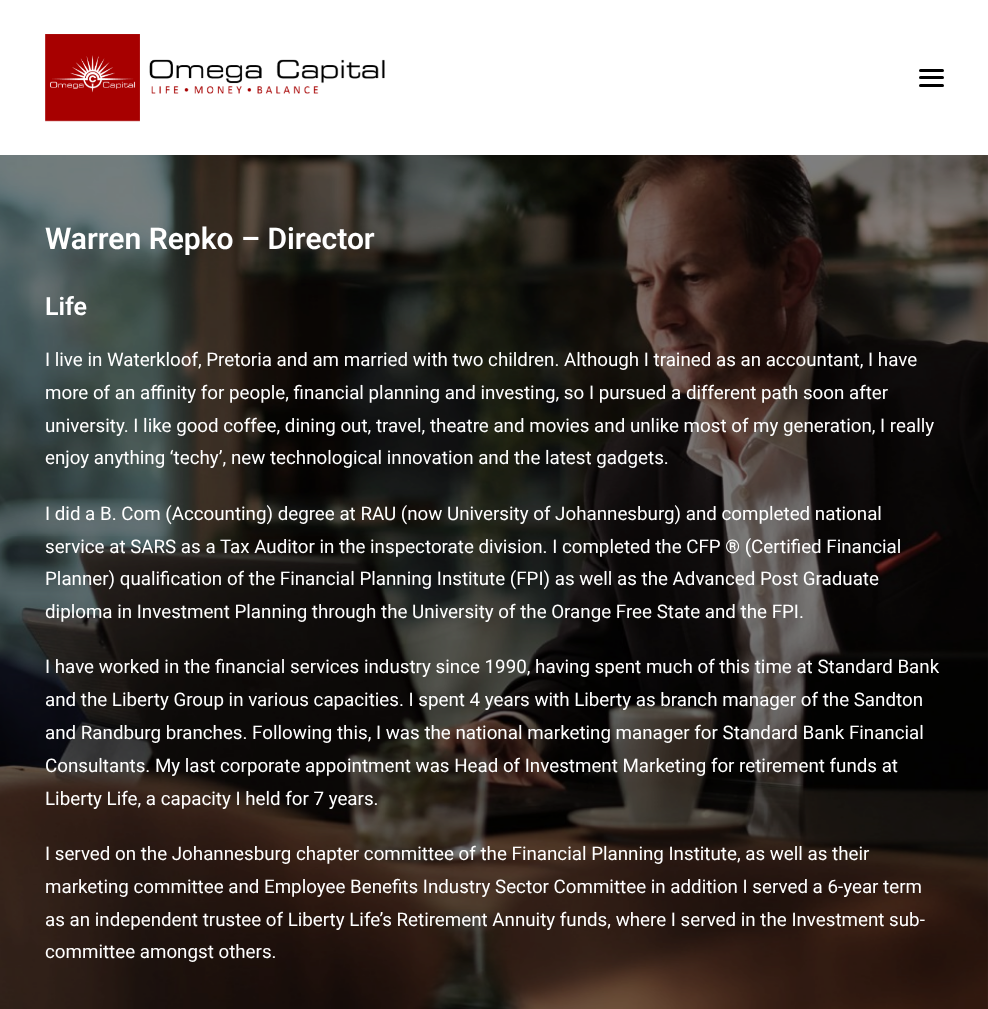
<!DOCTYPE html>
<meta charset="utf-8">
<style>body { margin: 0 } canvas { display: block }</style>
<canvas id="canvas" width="988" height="1009"></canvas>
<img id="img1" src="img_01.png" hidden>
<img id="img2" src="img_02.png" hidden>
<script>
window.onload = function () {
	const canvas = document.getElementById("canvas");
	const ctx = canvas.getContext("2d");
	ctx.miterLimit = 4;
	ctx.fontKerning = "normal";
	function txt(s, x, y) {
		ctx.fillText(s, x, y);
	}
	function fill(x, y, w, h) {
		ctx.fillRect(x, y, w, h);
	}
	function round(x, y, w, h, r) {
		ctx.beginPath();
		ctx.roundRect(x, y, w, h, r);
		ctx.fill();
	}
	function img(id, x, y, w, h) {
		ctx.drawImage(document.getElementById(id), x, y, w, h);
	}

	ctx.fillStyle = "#FFFFFF";
	fill(0, 0, 988, 1009);
	img("img1", 45, 34, 340, 88);
	ctx.fillStyle = "#000000";
	round(919, 76, 25, 3, 1.5);
	round(919, 69, 25, 3, 1.5);
	round(919, 84, 25, 3, 1.5);
	img("img2", 0, 155, 988, 854);
	ctx.font = "600 30px Roboto";
	ctx.fillStyle = "#FFFFFF";
	txt("Warren Repko – Director", 45, 249);
	ctx.font = "600 25px Roboto";
	txt("Life", 45, 315);
	ctx.font = "18.75px Roboto";
	txt("I live in Waterkloof, Pretoria and am married with two children. Although I trained as an accountant, I have", 45, 366);
	txt("more of an affinity for people, financial planning and investing, so I pursued a different path soon after", 45, 399);
	txt("university. I like good coffee, dining out, travel, theatre and movies and unlike most of my generation, I really", 45, 432);
	txt("enjoy anything ‘techy’, new technological innovation and the latest gadgets.", 45, 464);
	txt("I did a B. Com (Accounting) degree at RAU (now University of Johannesburg) and completed national", 45, 520);
	txt("service at SARS as a Tax Auditor in the inspectorate division. I completed the CFP ® (Certified Financial", 45, 553);
	txt("Planner) qualification of the Financial Planning Institute (FPI) as well as the Advanced Post Graduate", 45, 585);
	txt("diploma in Investment Planning through the University of the Orange Free State and the FPI.", 45, 618);
	txt("I have worked in the financial services industry since 1990, having spent much of this time at Standard Bank", 45, 673);
	txt("and the Liberty Group in various capacities. I spent 4 years with Liberty as branch manager of the Sandton", 45, 706);
	txt("and Randburg branches. Following this, I was the national marketing manager for Standard Bank Financial", 45, 739);
	txt("Consultants. My last corporate appointment was Head of Investment Marketing for retirement funds at", 45, 772);
	txt("Liberty Life, a capacity I held for 7 years.", 45, 805);
	txt("I served on the Johannesburg chapter committee of the Financial Planning Institute, as well as their", 45, 860);
	txt("marketing committee and Employee Benefits Industry Sector Committee in addition I served a 6-year term", 45, 893);
	txt("as an independent trustee of Liberty Life’s Retirement Annuity funds, where I served in the Investment sub-", 45, 926);
	txt("committee amongst others.", 45, 958);
};
</script>
